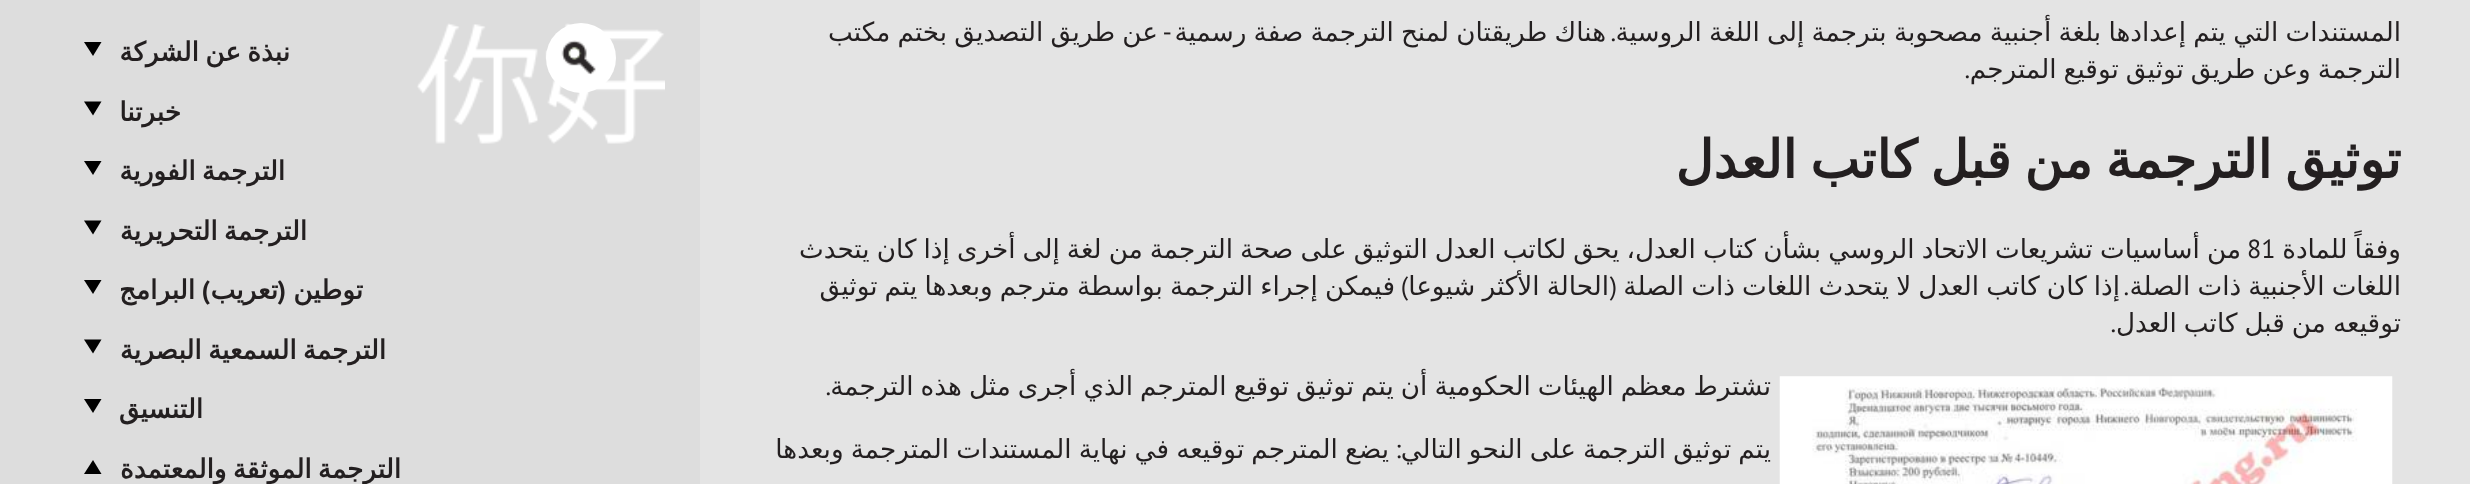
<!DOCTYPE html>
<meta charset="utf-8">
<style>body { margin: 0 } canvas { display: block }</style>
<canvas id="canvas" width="2470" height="484"></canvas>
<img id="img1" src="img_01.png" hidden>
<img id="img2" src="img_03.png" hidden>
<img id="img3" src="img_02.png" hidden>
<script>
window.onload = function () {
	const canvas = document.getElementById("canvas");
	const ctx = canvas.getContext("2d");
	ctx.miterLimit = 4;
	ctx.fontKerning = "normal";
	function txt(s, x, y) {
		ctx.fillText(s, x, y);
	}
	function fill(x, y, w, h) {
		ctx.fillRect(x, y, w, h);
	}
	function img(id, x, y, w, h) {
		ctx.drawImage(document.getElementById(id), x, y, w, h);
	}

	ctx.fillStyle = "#DDDDDD";
	fill(0, 0, 2470, 484);
	ctx.fillStyle = "#E4E4E4";
	fill(700, 0, 1770, 484);
	img("img1", 1779, 376, 614, 108);
	img("img2", 417, 23, 248, 121);
	ctx.fillStyle = "#FFFFFF";
	ctx.beginPath();
	ctx.arc(581, 58, 35, 0, Math.PI * 2);
	ctx.fill();
	img("img3", 561, 40, 35, 35);
	ctx.fillStyle = "#000000";
	ctx.beginPath();
	ctx.moveTo(84, 42);
	ctx.lineTo(101.5, 42);
	ctx.lineTo(93, 56);
	ctx.closePath();
	ctx.fill();
	ctx.beginPath();
	ctx.moveTo(84, 101.5);
	ctx.lineTo(101.5, 101.5);
	ctx.lineTo(93, 115.5);
	ctx.closePath();
	ctx.fill();
	ctx.beginPath();
	ctx.moveTo(84, 161);
	ctx.lineTo(101.5, 161);
	ctx.lineTo(93, 175);
	ctx.closePath();
	ctx.fill();
	ctx.beginPath();
	ctx.moveTo(84, 220.5);
	ctx.lineTo(101.5, 220.5);
	ctx.lineTo(93, 234.5);
	ctx.closePath();
	ctx.fill();
	ctx.beginPath();
	ctx.moveTo(84, 280);
	ctx.lineTo(101.5, 280);
	ctx.lineTo(93, 294);
	ctx.closePath();
	ctx.fill();
	ctx.beginPath();
	ctx.moveTo(84, 339.5);
	ctx.lineTo(101.5, 339.5);
	ctx.lineTo(93, 353.5);
	ctx.closePath();
	ctx.fill();
	ctx.beginPath();
	ctx.moveTo(84, 399);
	ctx.lineTo(101.5, 399);
	ctx.lineTo(93, 413);
	ctx.closePath();
	ctx.fill();
	ctx.beginPath();
	ctx.moveTo(101.5, 474);
	ctx.lineTo(84, 474);
	ctx.lineTo(93, 460);
	ctx.closePath();
	ctx.fill();
	ctx.wordSpacing = "-1.1px";
	ctx.direction = "rtl";
	ctx.font = "26.25px DejaVu Sans";
	ctx.fillStyle = "#231F20";
	txt("المستندات التي يتم إعدادها بلغة أجنبية مصحوبة بترجمة إلى اللغة الروسية", 2401, 41);
	txt("هناك طريقتان لمنح الترجمة صفة رسمية", 1606, 41);
	ctx.wordSpacing = "0px";
	ctx.font = "26.25px PT Sans";
	txt("-", 1172, 41);
	ctx.wordSpacing = "-1.1px";
	ctx.font = "26.25px DejaVu Sans";
	txt("عن طريق التصديق بختم مكتب", 1158, 41);
	ctx.wordSpacing = "0px";
	ctx.font = "26.25px PT Sans";
	txt(".", 1616, 41);
	ctx.wordSpacing = "-1.3px";
	ctx.font = "26.25px DejaVu Sans";
	txt("الترجمة وعن طريق توثيق توقيع المترجم", 2401, 78);
	ctx.wordSpacing = "0px";
	ctx.font = "26.25px PT Sans";
	txt(".", 1970, 78);
	ctx.wordSpacing = "-3.5px";
	ctx.font = "bold 52.5px DejaVu Sans";
	txt("توثيق الترجمة من قبل كاتب العدل", 2401, 178);
	ctx.wordSpacing = "-1.3px";
	ctx.font = "26.25px DejaVu Sans";
	txt("وفقاً للمادة", 2401, 258);
	ctx.wordSpacing = "-1.25px";
	txt("من أساسيات تشريعات الاتحاد الروسي بشأن كتاب العدل، يحق لكاتب العدل التوثيق على صحة الترجمة من لغة إلى أخرى إذا كان يتحدث", 2241, 258);
	ctx.wordSpacing = "0px";
	ctx.direction = "ltr";
	ctx.font = "26.25px PT Sans";
	txt("81", 2247, 258);
	ctx.wordSpacing = "-1.25px";
	ctx.direction = "rtl";
	ctx.font = "26.25px DejaVu Sans";
	txt("اللغات الأجنبية ذات الصلة", 2401, 295);
	txt("إذا كان كاتب العدل لا يتحدث اللغات ذات الصلة", 2120, 295);
	ctx.wordSpacing = "0px";
	ctx.font = "26.25px PT Sans";
	txt("(", 1617, 295);
	ctx.wordSpacing = "-1.25px";
	ctx.font = "26.25px DejaVu Sans";
	txt("الحالة الأكثر شيوعا", 1609, 295);
	txt("فيمكن إجراء الترجمة بواسطة مترجم وبعدها يتم توثيق", 1395, 295);
	ctx.wordSpacing = "0px";
	ctx.font = "26.25px PT Sans";
	txt(")", 1408, 295);
	txt(".", 2129, 295);
	ctx.wordSpacing = "-1.3px";
	ctx.font = "26.25px DejaVu Sans";
	txt("توقيعه من قبل كاتب العدل", 2401, 332);
	ctx.wordSpacing = "0px";
	ctx.font = "26.25px PT Sans";
	txt(".", 2116, 332);
	ctx.wordSpacing = "-1.3px";
	ctx.font = "26.25px DejaVu Sans";
	txt("تشترط معظم الهيئات الحكومية أن يتم توثيق توقيع المترجم الذي أجرى مثل هذه الترجمة", 1771, 395);
	ctx.wordSpacing = "0px";
	ctx.font = "26.25px PT Sans";
	txt(".", 831, 395);
	ctx.wordSpacing = "-1.25px";
	ctx.font = "26.25px DejaVu Sans";
	txt("يتم توثيق الترجمة على النحو التالي", 1771, 458);
	ctx.wordSpacing = "0px";
	ctx.font = "26.25px PT Sans";
	txt(":", 1401, 458);
	ctx.wordSpacing = "-1.25px";
	ctx.font = "26.25px DejaVu Sans";
	txt("يضع المترجم توقيعه في نهاية المستندات المترجمة وبعدها", 1389, 458);
	ctx.wordSpacing = "-2px";
	ctx.font = "bold 26.25px DejaVu Sans";
	txt("نبذة عن الشركة", 290, 61);
	ctx.wordSpacing = "0px";
	txt("خبرتنا", 181, 121);
	ctx.wordSpacing = "-2px";
	txt("الترجمة الفورية", 285, 180);
	txt("الترجمة التحريرية", 307, 240);
	ctx.wordSpacing = "0px";
	txt("توطين", 363, 299);
	ctx.font = "bold 26.25px PT Sans";
	txt("(", 286, 299);
	ctx.font = "bold 26.25px DejaVu Sans";
	txt("تعريب", 278, 299);
	ctx.font = "bold 26.25px PT Sans";
	txt(")", 210, 299);
	ctx.font = "bold 26.25px DejaVu Sans";
	txt("البرامج", 195, 299);
	ctx.wordSpacing = "-2px";
	txt("الترجمة السمعية البصرية", 386, 359);
	ctx.wordSpacing = "0px";
	txt("التنسيق", 203, 418);
	ctx.wordSpacing = "-2px";
	txt("الترجمة الموثقة والمعتمدة", 401, 478);
};
</script>
